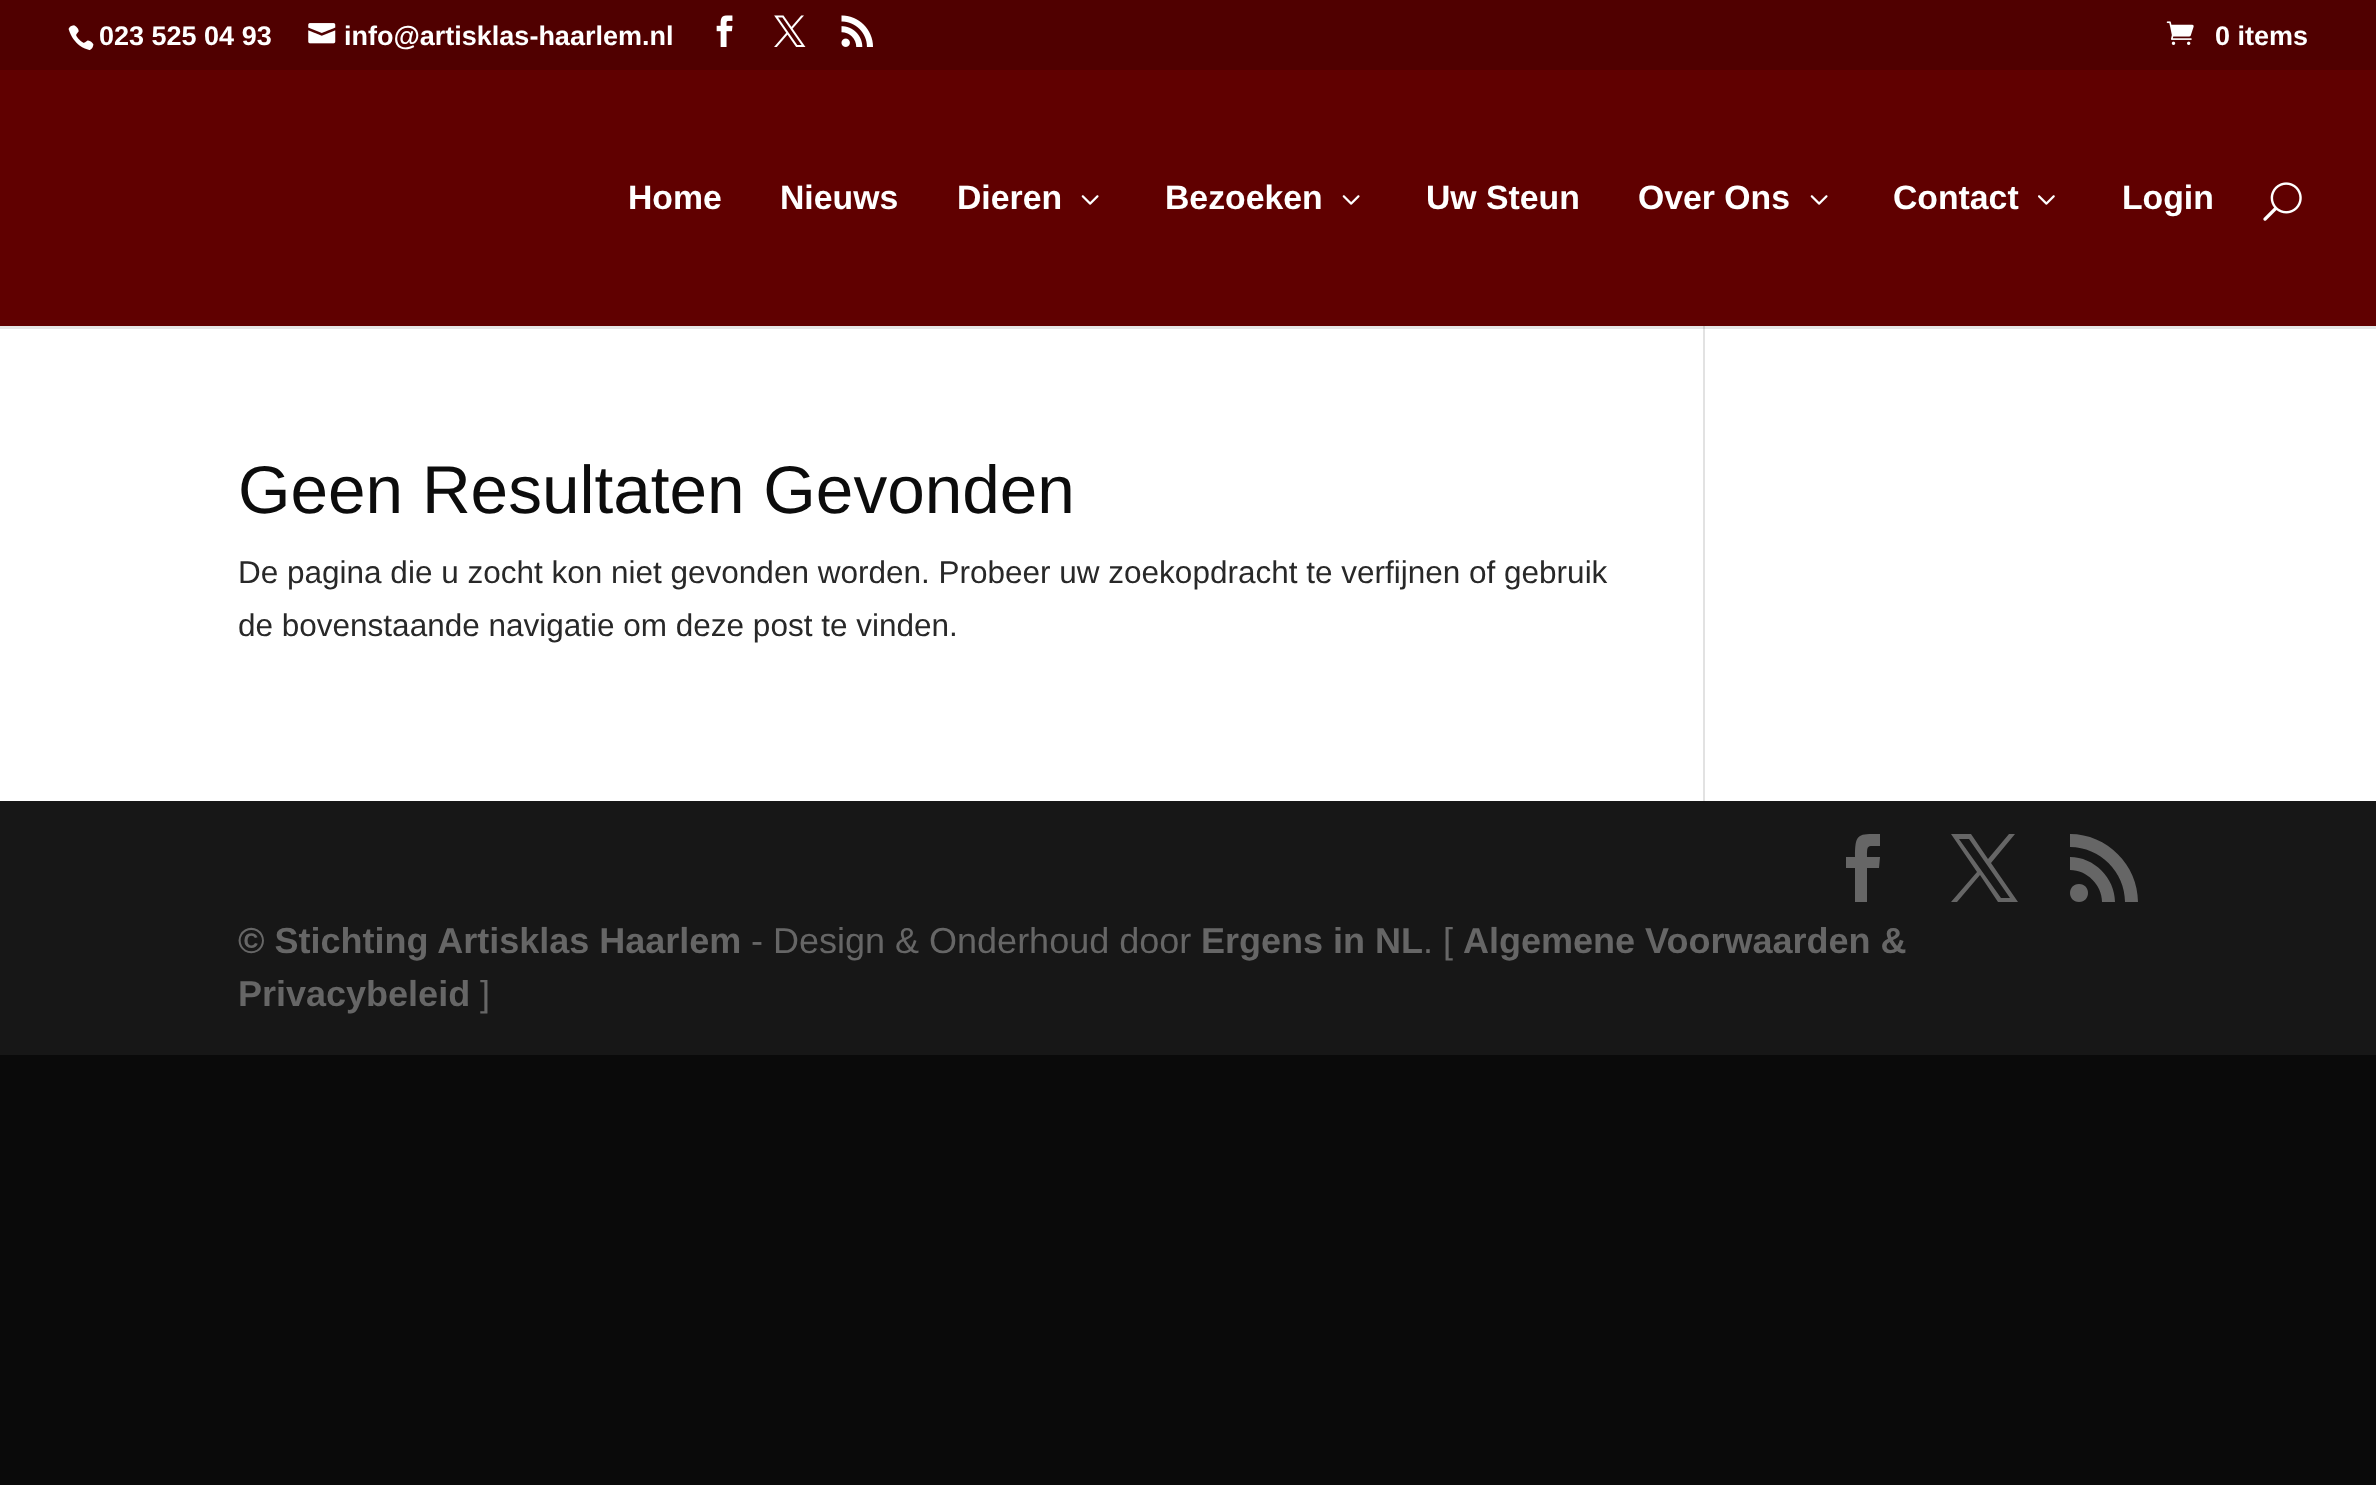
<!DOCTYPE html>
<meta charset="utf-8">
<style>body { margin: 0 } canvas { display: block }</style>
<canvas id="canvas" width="2376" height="1485"></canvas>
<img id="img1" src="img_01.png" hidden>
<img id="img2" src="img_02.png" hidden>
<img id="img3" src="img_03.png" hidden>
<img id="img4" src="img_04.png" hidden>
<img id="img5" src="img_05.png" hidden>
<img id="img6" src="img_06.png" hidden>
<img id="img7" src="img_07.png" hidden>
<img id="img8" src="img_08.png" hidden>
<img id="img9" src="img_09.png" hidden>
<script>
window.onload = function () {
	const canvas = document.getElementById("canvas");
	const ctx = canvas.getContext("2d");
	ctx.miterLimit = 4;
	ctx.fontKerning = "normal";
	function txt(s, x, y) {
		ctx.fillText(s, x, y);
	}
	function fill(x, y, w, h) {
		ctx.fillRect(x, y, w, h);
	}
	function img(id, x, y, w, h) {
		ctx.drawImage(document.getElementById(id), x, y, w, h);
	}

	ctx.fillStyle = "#0A0A0A";
	fill(0, 0, 2376, 1485);
	ctx.fillStyle = "#500000";
	fill(0, 0, 2376, 70);
	img("img1", 68, 25, 26, 26);
	img("img2", 308, 23, 28, 21);
	img("img3", 716, 15, 17, 32);
	img("img4", 774, 15, 32, 32);
	img("img5", 841, 15, 32, 32);
	img("img6", 2166, 21, 28, 24);
	ctx.fillStyle = "#600000";
	fill(0, 70, 2376, 256);
	img("img7", 1081, 195, 18, 10);
	img("img7", 1342, 195, 18, 10);
	img("img7", 1810, 195, 18, 10);
	img("img8", 2038, 195, 17, 10);
	img("img9", 2263, 182, 39, 39);
	ctx.fillStyle = "#FFFFFF";
	fill(0, 329, 2376, 472);
	ctx.fillStyle = "#E6E6E6";
	fill(0, 326, 2376, 3);
	ctx.fillStyle = "#E2E2E2";
	fill(1703, 326, 2, 475);
	ctx.fillStyle = "#CBCBCB";
	fill(1703, 326, 2, 3);
	ctx.fillStyle = "#171717";
	fill(0, 801, 2376, 254);
	ctx.fillStyle = "#666666";
	ctx.beginPath();
	ctx.moveTo(1855, 902);
	ctx.lineTo(1867, 902);
	ctx.lineTo(1867, 868);
	ctx.lineTo(1879, 868);
	ctx.lineTo(1880, 857);
	ctx.lineTo(1867, 857);
	ctx.bezierCurveTo(1867, 844, 1867, 846, 1880, 846);
	ctx.lineTo(1880, 834);
	ctx.bezierCurveTo(1858, 834, 1855, 833, 1855, 857);
	ctx.lineTo(1846, 857);
	ctx.lineTo(1846, 868);
	ctx.lineTo(1855, 868);
	ctx.closePath();
	ctx.fill();
	ctx.beginPath();
	ctx.moveTo(1951, 834);
	ctx.lineTo(1977, 872);
	ctx.lineTo(1951, 902);
	ctx.lineTo(1957, 902);
	ctx.lineTo(1980, 875);
	ctx.lineTo(1998, 902);
	ctx.lineTo(2018, 902);
	ctx.lineTo(1991, 863);
	ctx.lineTo(2015, 834);
	ctx.lineTo(2009, 834);
	ctx.lineTo(1988, 859);
	ctx.lineTo(1971, 834);
	ctx.closePath();
	ctx.moveTo(1959, 839);
	ctx.lineTo(1969, 839);
	ctx.lineTo(2010, 898);
	ctx.lineTo(2001, 898);
	ctx.closePath();
	ctx.fill();
	ctx.beginPath();
	ctx.moveTo(2070, 834);
	ctx.lineTo(2070, 847);
	ctx.bezierCurveTo(2100, 847, 2125, 872, 2125, 902);
	ctx.lineTo(2138, 902);
	ctx.bezierCurveTo(2138, 865, 2107, 834, 2070, 834);
	ctx.closePath();
	ctx.moveTo(2102, 902);
	ctx.lineTo(2115, 902);
	ctx.bezierCurveTo(2115, 878, 2094, 857, 2070, 857);
	ctx.lineTo(2070, 870);
	ctx.bezierCurveTo(2087, 870, 2102, 885, 2102, 902);
	ctx.closePath();
	ctx.moveTo(2079, 902);
	ctx.bezierCurveTo(2091, 902, 2091, 884, 2079, 884);
	ctx.bezierCurveTo(2067, 884, 2067, 902, 2079, 902);
	ctx.closePath();
	ctx.fill();
	ctx.font = "bold 27px Liberation Sans";
	ctx.fillStyle = "#FFFFFF";
	txt("023 525 04 93", 99, 45);
	txt("info@artisklas-haarlem.nl", 344, 45);
	txt("0 items", 2215, 45);
	ctx.font = "bold 33.75px Liberation Sans";
	txt("Home", 628, 209);
	txt("Nieuws", 780, 209);
	txt("Dieren", 957, 209);
	txt("Bezoeken", 1165, 209);
	txt("Uw Steun", 1426, 209);
	txt("Over Ons", 1638, 209);
	txt("Contact", 1893, 209);
	txt("Login", 2122, 209);
	ctx.font = "67.5px Liberation Sans";
	ctx.fillStyle = "#0C0C0C";
	txt("Geen Resultaten Gevonden", 238, 513);
	ctx.font = "31.5px Liberation Sans";
	ctx.fillStyle = "#282828";
	txt("De pagina die u zocht kon niet gevonden worden. Probeer uw zoekopdracht te verfijnen of gebruik", 238, 583);
	txt("de bovenstaande navigatie om deze post te vinden.", 238, 636);
	ctx.font = "bold 36px Liberation Sans";
	ctx.fillStyle = "#666666";
	txt("© Stichting Artisklas Haarlem", 238, 953);
	ctx.font = "36px Liberation Sans";
	txt("- Design & Onderhoud door", 751, 953);
	ctx.font = "bold 36px Liberation Sans";
	txt("Ergens in NL", 1201, 953);
	ctx.font = "36px Liberation Sans";
	txt(". [", 1423, 953);
	ctx.font = "bold 36px Liberation Sans";
	txt("Algemene Voorwaarden &", 1463, 953);
	txt("Privacybeleid", 238, 1006);
	ctx.font = "36px Liberation Sans";
	txt("]", 480, 1006);
};
</script>
